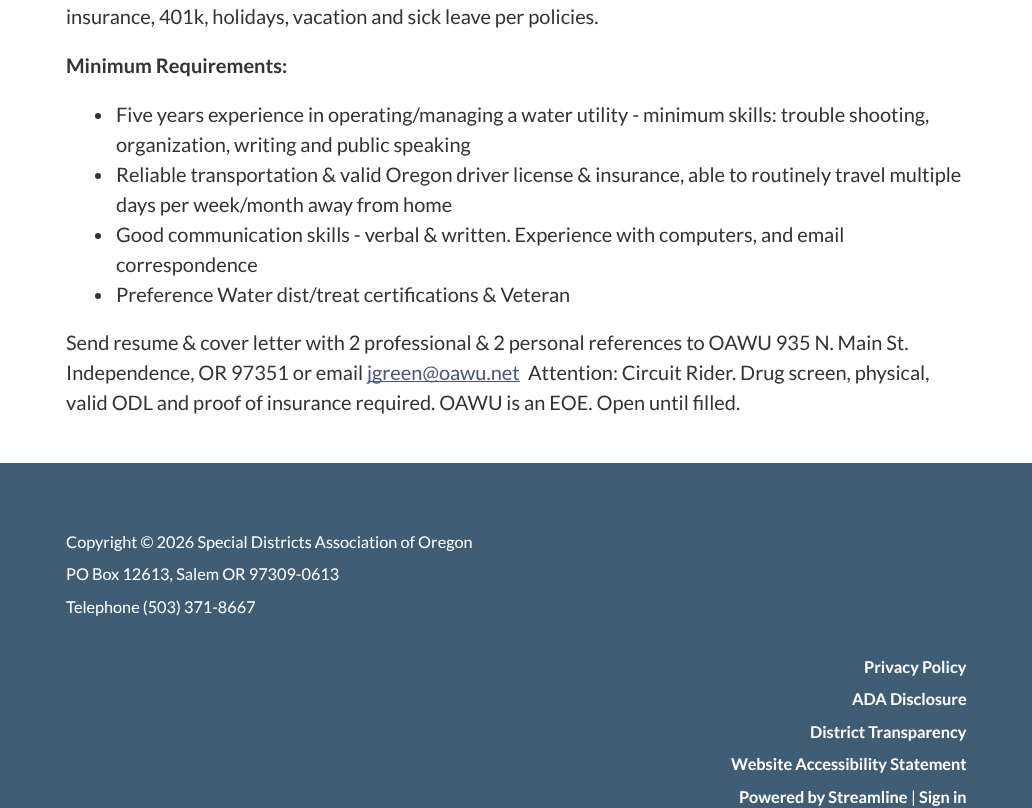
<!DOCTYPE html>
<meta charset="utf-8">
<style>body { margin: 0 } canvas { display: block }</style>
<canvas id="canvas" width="1032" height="808"></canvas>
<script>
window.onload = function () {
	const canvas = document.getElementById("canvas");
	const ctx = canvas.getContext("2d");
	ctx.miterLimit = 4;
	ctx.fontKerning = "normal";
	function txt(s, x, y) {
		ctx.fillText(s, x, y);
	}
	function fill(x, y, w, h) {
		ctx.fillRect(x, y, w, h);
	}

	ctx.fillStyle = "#3F5D74";
	fill(0, 0, 1032, 808);
	ctx.fillStyle = "#FFFFFF";
	fill(0, 0, 1032, 463);
	ctx.fillStyle = "#333333";
	ctx.beginPath();
	ctx.arc(98, 116, 3, 0, Math.PI * 2);
	ctx.fill();
	ctx.beginPath();
	ctx.arc(98, 176, 3, 0, Math.PI * 2);
	ctx.fill();
	ctx.beginPath();
	ctx.arc(98, 236, 3, 0, Math.PI * 2);
	ctx.fill();
	ctx.beginPath();
	ctx.arc(98, 296, 3, 0, Math.PI * 2);
	ctx.fill();
	ctx.fillStyle = "#475580";
	fill(368, 381, 152, 1);
	ctx.font = "20px Lato";
	ctx.fillStyle = "#333333";
	txt("insurance, 401k, holidays, vacation and sick leave per policies.", 66, 24);
	ctx.font = "bold 20px Lato";
	txt("Minimum Requirements:", 66, 73);
	ctx.font = "20px Lato";
	txt("Five years experience in operating/managing a water utility - minimum skills: trouble shooting,", 116, 122);
	txt("organization, writing and public speaking", 116, 152);
	txt("Reliable transportation & valid Oregon driver license & insurance, able to routinely travel multiple", 116, 182);
	txt("days per week/month away from home", 116, 212);
	txt("Good communication skills - verbal & written. Experience with computers, and email", 116, 242);
	txt("correspondence", 116, 272);
	txt("Preference Water dist/treat certifications & Veteran", 116, 302);
	txt("Send resume & cover letter with 2 professional & 2 personal references to OAWU 935 N. Main St.", 66, 350);
	txt("Independence, OR 97351 or email", 66, 380);
	ctx.fillStyle = "#475580";
	txt("jgreen@oawu.net", 367, 380);
	ctx.fillStyle = "#333333";
	txt("Attention: Circuit Rider. Drug screen, physical,", 528, 380);
	txt("valid ODL and proof of insurance required. OAWU is an EOE. Open until filled.", 66, 410);
	ctx.font = "16.25px Lato";
	ctx.fillStyle = "#FFFFFF";
	txt("Copyright © 2026 Special Districts Association of Oregon", 66, 548);
	txt("PO Box 12613, Salem OR 97309-0613", 66, 580);
	txt("Telephone (503) 371-8667", 66, 613);
	ctx.font = "bold 16.25px Lato";
	txt("Privacy Policy", 864, 673);
	txt("ADA Disclosure", 852, 705);
	txt("District Transparency", 810, 738);
	txt("Website Accessibility Statement", 731, 770);
	txt("Powered by Streamline", 739, 803);
	ctx.font = "16.25px Lato";
	txt("|", 911, 803);
	ctx.font = "bold 16.25px Lato";
	txt("Sign in", 919, 803);
};
</script>
